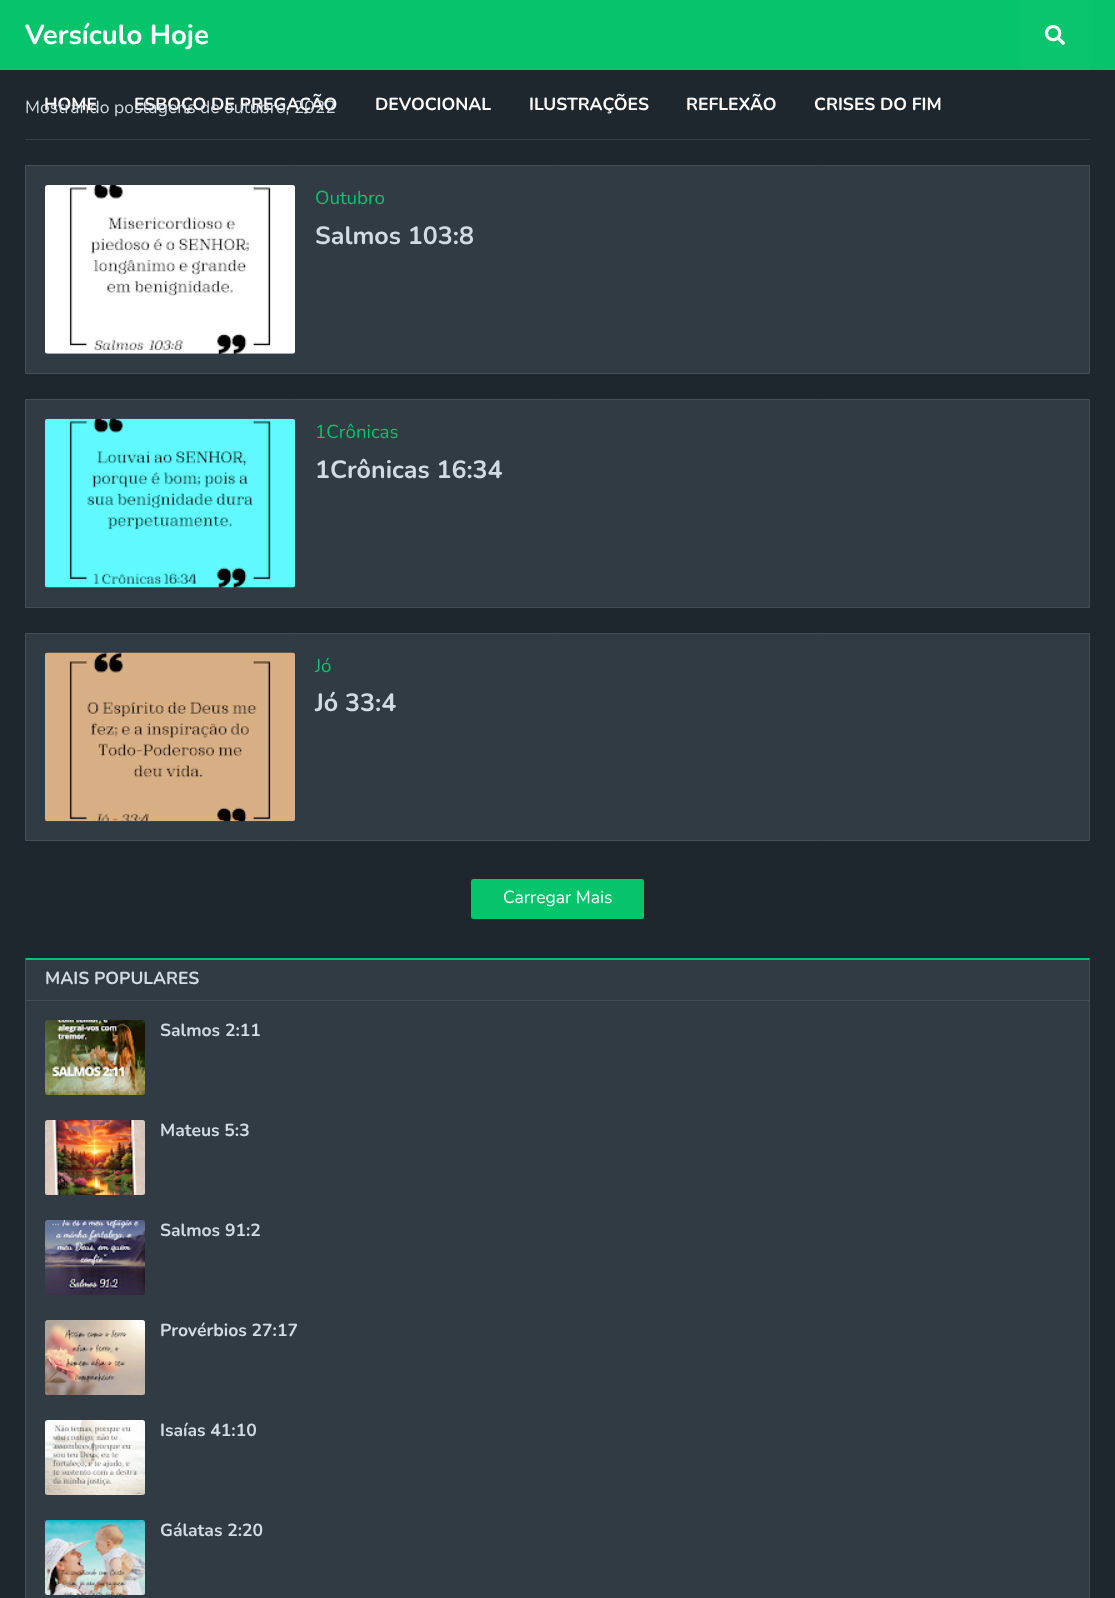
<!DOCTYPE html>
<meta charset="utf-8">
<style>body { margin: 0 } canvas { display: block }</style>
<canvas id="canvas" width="1115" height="1598"></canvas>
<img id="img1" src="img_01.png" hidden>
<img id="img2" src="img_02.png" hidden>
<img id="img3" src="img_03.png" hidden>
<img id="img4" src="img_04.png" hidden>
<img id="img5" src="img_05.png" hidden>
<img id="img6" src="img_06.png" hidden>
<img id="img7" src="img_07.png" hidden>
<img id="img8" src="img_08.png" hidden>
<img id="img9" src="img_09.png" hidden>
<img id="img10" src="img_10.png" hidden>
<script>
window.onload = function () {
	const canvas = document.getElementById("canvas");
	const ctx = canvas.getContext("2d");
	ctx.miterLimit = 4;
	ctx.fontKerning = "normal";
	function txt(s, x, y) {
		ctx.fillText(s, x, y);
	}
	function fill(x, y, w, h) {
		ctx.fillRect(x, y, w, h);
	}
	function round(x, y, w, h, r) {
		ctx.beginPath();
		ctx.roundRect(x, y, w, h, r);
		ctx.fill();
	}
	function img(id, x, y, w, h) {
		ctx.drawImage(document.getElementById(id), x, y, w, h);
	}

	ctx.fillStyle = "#1E272E";
	fill(0, 0, 1115, 1598);
	ctx.fillStyle = "#05C46B";
	fill(0, 0, 1115, 70);
	ctx.fillStyle = "#0AC56E";
	fill(1020, 0, 70, 70);
	img("img1", 1045, 25, 20, 20);
	ctx.fillStyle = "#373E44";
	fill(25, 139, 1065, 1);
	ctx.fillStyle = "#303B44";
	ctx.beginPath();
	ctx.rect(25.5, 165.5, 1064, 208);
	ctx.fill();
	ctx.strokeStyle = "#454E55";
	ctx.stroke();
	ctx.fillStyle = "#39434B";
	round(45, 185, 250, 169, 2.5);
	img("img2", 45, 185, 250, 169);
	ctx.fillStyle = "#303B44";
	ctx.beginPath();
	ctx.rect(25.5, 399.5, 1064, 208);
	ctx.fill();
	ctx.stroke();
	ctx.fillStyle = "#39434B";
	round(45, 419, 250, 169, 2.5);
	img("img3", 45, 418, 250, 170);
	ctx.fillStyle = "#303B44";
	ctx.beginPath();
	ctx.rect(25.5, 633.5, 1064, 207);
	ctx.fill();
	ctx.stroke();
	img("img4", 45, 652, 250, 170);
	ctx.fillStyle = "#05C46B";
	round(471, 879, 173, 40, 2.5);
	ctx.fillStyle = "#303B44";
	fill(25, 958, 1065, 640);
	ctx.fillStyle = "#05C46B";
	ctx.beginPath();
	ctx.moveTo(25, 958);
	ctx.lineTo(1090, 958);
	ctx.lineTo(1089, 960);
	ctx.lineTo(26, 960);
	ctx.closePath();
	ctx.fill();
	ctx.fillStyle = "rgba(155, 155, 155, 0.2)";
	ctx.beginPath();
	ctx.moveTo(1090, 958);
	ctx.lineTo(1090, 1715);
	ctx.lineTo(1089, 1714);
	ctx.lineTo(1089, 960);
	ctx.closePath();
	ctx.fill();
	ctx.beginPath();
	ctx.moveTo(25, 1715);
	ctx.lineTo(25, 958);
	ctx.lineTo(26, 960);
	ctx.lineTo(26, 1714);
	ctx.closePath();
	ctx.fill();
	ctx.fillStyle = "#454E55";
	fill(26, 1000, 1063, 1);
	img("img5", 45, 1020, 100, 75);
	img("img6", 45, 1120, 100, 75);
	img("img7", 45, 1220, 100, 75);
	img("img8", 45, 1320, 100, 75);
	img("img9", 45, 1420, 100, 75);
	img("img10", 45, 1520, 100, 75);
	ctx.font = "bold 27.5px Nunito";
	ctx.fillStyle = "#FFFFFF";
	txt("Versículo Hoje", 25, 44);
	ctx.font = "bold 17.5px Nunito";
	txt("HOME", 44, 110);
	txt("ESBOÇO DE PREGAÇÃO", 134, 110);
	txt("DEVOCIONAL", 375, 110);
	txt("ILUSTRAÇÕES", 529, 110);
	txt("REFLEXÃO", 686, 110);
	txt("CRISES DO FIM", 814, 110);
	ctx.font = "17.5px Nunito";
	ctx.fillStyle = "#D2DAE2";
	txt("Mostrando postagens de outubro, 2022", 25, 113);
	ctx.font = "18.75px Nunito";
	ctx.fillStyle = "#05C46B";
	txt("Outubro", 315, 204);
	ctx.font = "bold 25px Nunito";
	ctx.fillStyle = "#D2DAE2";
	txt("Salmos 103:8", 315, 244);
	ctx.font = "18.75px Nunito";
	ctx.fillStyle = "#05C46B";
	txt("1Crônicas", 315, 438);
	ctx.font = "bold 25px Nunito";
	ctx.fillStyle = "#D2DAE2";
	txt("1Crônicas 16:34", 315, 478);
	ctx.font = "18.75px Nunito";
	ctx.fillStyle = "#05C46B";
	txt("Jó", 315, 672);
	ctx.font = "bold 25px Nunito";
	ctx.fillStyle = "#D2DAE2";
	txt("Jó 33:4", 315, 711);
	ctx.font = "17.5px Nunito";
	ctx.fillStyle = "#FFFFFF";
	txt("Carregar Mais", 503, 903);
	ctx.font = "bold 17.5px Nunito";
	ctx.fillStyle = "#D2DAE2";
	txt("MAIS POPULARES", 45, 984);
	txt("Salmos 2:11", 160, 1036);
	txt("Mateus 5:3", 160, 1136);
	txt("Salmos 91:2", 160, 1236);
	txt("Provérbios 27:17", 160, 1336);
	txt("Isaías 41:10", 160, 1436);
	txt("Gálatas 2:20", 160, 1536);
};
</script>
